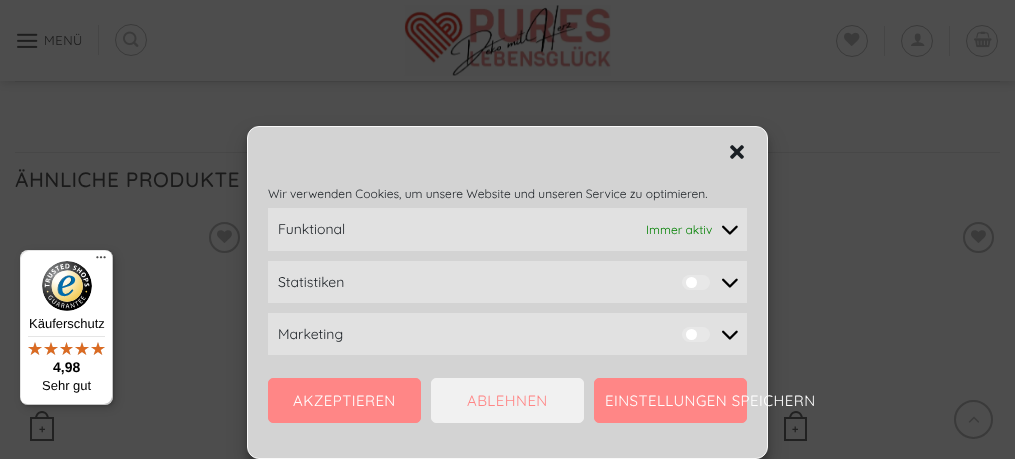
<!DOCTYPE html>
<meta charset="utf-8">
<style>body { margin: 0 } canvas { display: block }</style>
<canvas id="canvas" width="1015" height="459"></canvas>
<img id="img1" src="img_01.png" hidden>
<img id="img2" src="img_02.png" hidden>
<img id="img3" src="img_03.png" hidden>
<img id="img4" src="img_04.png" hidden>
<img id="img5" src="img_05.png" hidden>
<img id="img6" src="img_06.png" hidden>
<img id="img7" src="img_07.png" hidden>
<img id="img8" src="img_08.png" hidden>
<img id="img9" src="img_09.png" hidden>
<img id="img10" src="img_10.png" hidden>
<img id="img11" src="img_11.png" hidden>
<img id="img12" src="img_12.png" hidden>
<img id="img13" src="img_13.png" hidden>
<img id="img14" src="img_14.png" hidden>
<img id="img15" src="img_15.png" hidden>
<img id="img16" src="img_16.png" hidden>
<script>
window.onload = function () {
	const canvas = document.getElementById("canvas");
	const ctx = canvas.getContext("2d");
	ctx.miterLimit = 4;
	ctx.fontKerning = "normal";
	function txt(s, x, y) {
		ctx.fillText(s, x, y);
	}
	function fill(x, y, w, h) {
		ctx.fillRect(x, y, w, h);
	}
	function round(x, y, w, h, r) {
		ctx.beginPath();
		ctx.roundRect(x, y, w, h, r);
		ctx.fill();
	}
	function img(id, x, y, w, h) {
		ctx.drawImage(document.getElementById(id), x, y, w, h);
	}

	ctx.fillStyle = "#4D4D4D";
	fill(0, 0, 1015, 459);
	ctx.fillStyle = "rgba(0, 0, 0, 0.15)";
	ctx.filter = "blur(5px)";
	ctx.beginPath();
	ctx.rect(1, 1, 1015, 81);
	ctx.fill();
	ctx.filter = "none";
	ctx.fillStyle = "#4D4D4D";
	fill(0, 0, 1015, 81);
	img("img1", 17, 33, 21, 15);
	ctx.fillStyle = "#454545";
	fill(98, 25, 1, 30);
	ctx.beginPath();
	ctx.arc(131, 40, 15.5, 0, Math.PI * 2);
	ctx.strokeStyle = "#3A3A3A";
	ctx.stroke();
	img("img2", 123, 31, 16, 16);
	img("img3", 404, 5, 207, 71);
	ctx.beginPath();
	ctx.arc(852, 41, 15.5, 0, Math.PI * 2);
	ctx.stroke();
	img("img4", 844, 32, 16, 14);
	fill(884, 26, 1, 30);
	ctx.beginPath();
	ctx.arc(917, 41, 15.5, 0, Math.PI * 2);
	ctx.stroke();
	img("img5", 911, 33, 14, 13);
	fill(949, 26, 1, 30);
	ctx.beginPath();
	ctx.arc(982, 41, 15.5, 0, Math.PI * 2);
	ctx.stroke();
	img("img6", 974, 31, 18, 17);
	ctx.fillStyle = "#414141";
	fill(15, 81, 985, 1);
	ctx.fillStyle = "#474747";
	fill(15, 152, 985, 1);
	ctx.beginPath();
	ctx.arc(224.5, 237.5, 14.5, 0, Math.PI * 2);
	ctx.lineWidth = 2;
	ctx.stroke();
	img("img7", 217, 230, 15, 13);
	ctx.strokeStyle = "#212121";
	ctx.strokeRect(31, 418, 22, 22);
	ctx.fillStyle = "#212121";
	ctx.beginPath();
	ctx.moveTo(42, 411);
	ctx.bezierCurveTo(46.5, 411, 49, 415, 49, 419);
	ctx.lineTo(35, 419);
	ctx.bezierCurveTo(35, 415, 37.5, 411, 42, 411);
	ctx.closePath();
	ctx.moveTo(42, 413);
	ctx.bezierCurveTo(45.5, 413, 47, 416, 47, 419);
	ctx.lineTo(37, 419);
	ctx.bezierCurveTo(37, 416, 38.5, 413, 42, 413);
	ctx.closePath();
	ctx.fill("evenodd");
	ctx.beginPath();
	ctx.arc(978.5, 237.5, 14.5, 0, Math.PI * 2);
	ctx.strokeStyle = "#3A3A3A";
	ctx.stroke();
	img("img7", 971, 230, 15, 13);
	ctx.strokeStyle = "#212121";
	ctx.strokeRect(785, 418, 21, 22);
	ctx.beginPath();
	ctx.moveTo(796, 411);
	ctx.bezierCurveTo(800.5, 411, 803, 415, 803, 419);
	ctx.lineTo(789, 419);
	ctx.bezierCurveTo(789, 415, 791.5, 411, 796, 411);
	ctx.closePath();
	ctx.moveTo(796, 413);
	ctx.bezierCurveTo(799.5, 413, 801, 416, 801, 419);
	ctx.lineTo(791, 419);
	ctx.bezierCurveTo(791, 416, 792.5, 413, 796, 413);
	ctx.closePath();
	ctx.fill("evenodd");
	ctx.beginPath();
	ctx.arc(973.5, 419.5, 18.5, 0, Math.PI * 2);
	ctx.strokeStyle = "#3A3A3A";
	ctx.stroke();
	img("img8", 968, 416, 11, 7);
	ctx.fillStyle = "rgba(0, 0, 0, 0.15)";
	ctx.filter = "blur(4px)";
	ctx.beginPath();
	ctx.roundRect(23, 253, 93, 155, 8);
	ctx.fill();
	ctx.filter = "none";
	ctx.filter = "blur(1px)";
	ctx.beginPath();
	ctx.roundRect(21, 251, 93, 155, 8);
	ctx.fill();
	ctx.filter = "none";
	ctx.fillStyle = "#FFFFFF";
	round(20, 250, 93, 155, 8);
	ctx.fillStyle = "rgba(0, 0, 0, 0.1)";
	ctx.beginPath();
	ctx.moveTo(29, 251);
	ctx.lineTo(106, 251);
	ctx.bezierCurveTo(108, 251, 110, 252, 112, 254);
	ctx.bezierCurveTo(110, 252, 108, 250, 105, 250);
	ctx.lineTo(28, 250);
	ctx.bezierCurveTo(24, 250, 20, 254, 20, 258);
	ctx.lineTo(20, 397);
	ctx.bezierCurveTo(20, 400, 22, 402, 24, 404);
	ctx.bezierCurveTo(22, 402, 21, 400, 21, 398);
	ctx.lineTo(21, 259);
	ctx.bezierCurveTo(21, 255, 25, 251, 29, 251);
	ctx.closePath();
	ctx.fill();
	ctx.fillStyle = "rgba(0, 0, 0, 0.2)";
	ctx.beginPath();
	ctx.moveTo(21, 401);
	ctx.bezierCurveTo(23, 403, 25, 405, 28, 405);
	ctx.lineTo(105, 405);
	ctx.bezierCurveTo(109, 405, 113, 401, 113, 397);
	ctx.lineTo(113, 258);
	ctx.bezierCurveTo(113, 255, 111, 253, 109, 251);
	ctx.bezierCurveTo(111, 253, 112, 255, 112, 257);
	ctx.lineTo(112, 396);
	ctx.bezierCurveTo(112, 400, 108, 404, 104, 404);
	ctx.lineTo(27, 404);
	ctx.bezierCurveTo(25, 404, 23, 403, 21, 401);
	ctx.closePath();
	ctx.fill();
	ctx.fillStyle = "rgba(50, 50, 50, 0.2)";
	ctx.beginPath();
	ctx.moveTo(22, 402);
	ctx.bezierCurveTo(23, 404, 26, 405, 28, 405);
	ctx.lineTo(105, 405);
	ctx.bezierCurveTo(109, 405, 113, 401, 113, 397);
	ctx.lineTo(113, 258);
	ctx.bezierCurveTo(113, 256, 112, 253, 110, 252);
	ctx.bezierCurveTo(111, 253, 112, 255, 112, 257);
	ctx.lineTo(112, 396);
	ctx.bezierCurveTo(112, 401, 109, 404, 104, 404);
	ctx.lineTo(27, 404);
	ctx.bezierCurveTo(25, 404, 23, 403, 22, 402);
	ctx.closePath();
	ctx.fill();
	ctx.fillStyle = "rgba(255, 255, 255, 0.3)";
	ctx.beginPath();
	ctx.moveTo(112, 258);
	ctx.bezierCurveTo(112, 253, 109, 250, 104, 250);
	ctx.lineTo(105, 250);
	ctx.bezierCurveTo(109, 250, 113, 254, 113, 258);
	ctx.lineTo(113, 397);
	ctx.bezierCurveTo(113, 401, 109, 405, 105, 405);
	ctx.lineTo(28, 405);
	ctx.bezierCurveTo(24, 405, 20, 401, 20, 397);
	ctx.lineTo(20, 396);
	ctx.bezierCurveTo(20, 401, 23, 404, 28, 404);
	ctx.lineTo(104, 404);
	ctx.bezierCurveTo(109, 404, 112, 401, 112, 396);
	ctx.closePath();
	ctx.fill();
	img("img9", 96, 256, 10, 3);
	img("img10", 42, 261, 50, 50);
	ctx.fillStyle = "#E5E5E5";
	fill(28, 336, 77, 1);
	img("img11", 28, 342, 14, 13);
	img("img11", 44, 342, 14, 13);
	img("img12", 60, 342, 13, 13);
	img("img11", 75, 342, 14, 13);
	img("img11", 91, 342, 14, 13);
	img("img13", 28, 342, 14, 13);
	img("img13", 44, 342, 14, 13);
	img("img14", 60, 342, 13, 13);
	img("img13", 75, 342, 14, 13);
	img("img13", 91, 342, 14, 13);
	ctx.fillStyle = "rgba(0, 0, 0, 0.23)";
	ctx.filter = "blur(3px)";
	ctx.beginPath();
	ctx.roundRect(247, 132, 521, 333, 12);
	ctx.fill();
	ctx.filter = "none";
	ctx.fillStyle = "rgba(0, 0, 0, 0.19)";
	ctx.filter = "blur(10px)";
	ctx.beginPath();
	ctx.roundRect(247, 136, 521, 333, 12);
	ctx.fill();
	ctx.filter = "none";
	ctx.fillStyle = "#D3D3D3";
	ctx.beginPath();
	ctx.roundRect(247.5, 126.5, 520, 332, 11.5);
	ctx.fill();
	ctx.strokeStyle = "#F9F9F9";
	ctx.lineWidth = 1;
	ctx.stroke();
	img("img15", 730, 145, 14, 14);
	ctx.fillStyle = "#E1E1E1";
	fill(268, 208, 479, 43);
	img("img16", 722, 225, 16, 10);
	fill(268, 261, 479, 42);
	ctx.fillStyle = "#E8E8E8";
	round(682, 275, 28, 15, 7.5);
	ctx.fillStyle = "#FFFFFF";
	ctx.beginPath();
	ctx.arc(691.5, 282.5, 5.5, 0, Math.PI * 2);
	ctx.fill();
	img("img16", 722, 278, 16, 10);
	ctx.fillStyle = "#E1E1E1";
	fill(268, 313, 479, 42);
	ctx.fillStyle = "#E8E8E8";
	round(682, 327, 28, 15, 7.5);
	ctx.fillStyle = "#FFFFFF";
	ctx.beginPath();
	ctx.arc(691.5, 334.5, 5.5, 0, Math.PI * 2);
	ctx.fill();
	img("img16", 722, 330, 16, 10);
	ctx.fillStyle = "#FF8686";
	ctx.beginPath();
	ctx.roundRect(268.5, 378.5, 152, 44, 4.5);
	ctx.fill();
	ctx.strokeStyle = "#FF8686";
	ctx.stroke();
	ctx.fillStyle = "#F1F1F1";
	ctx.beginPath();
	ctx.roundRect(431.5, 378.5, 152, 44, 4.5);
	ctx.fill();
	ctx.strokeStyle = "#F1F1F1";
	ctx.stroke();
	ctx.fillStyle = "#FF8686";
	ctx.beginPath();
	ctx.roundRect(594.5, 378.5, 152, 44, 4.5);
	ctx.fill();
	ctx.strokeStyle = "#FF8686";
	ctx.stroke();
	ctx.letterSpacing = "0.5px";
	ctx.font = "13px Quicksand";
	ctx.fillStyle = "#1A1A1A";
	txt("MENÜ", 44, 45);
	ctx.letterSpacing = "1px";
	ctx.font = "bold 20px Quicksand";
	txt("ÄHNLICHE PRODUKTE", 15, 187);
	ctx.letterSpacing = "0px";
	ctx.font = "bold 11px Liberation Sans";
	ctx.fillStyle = "#212121";
	txt("+", 39, 433);
	txt("+", 792, 433);
	ctx.font = "13px Liberation Sans";
	ctx.fillStyle = "#000000";
	txt("Käuferschutz", 29, 328);
	ctx.font = "bold 14px Liberation Sans";
	txt("4,98", 53, 372);
	ctx.font = "13px Liberation Sans";
	txt("Sehr gut", 42, 390);
	ctx.font = "12px Quicksand";
	ctx.fillStyle = "#191E23";
	txt("Wir verwenden Cookies, um unsere Website und unseren Service zu optimieren.", 268, 198);
	ctx.font = "14px Quicksand";
	txt("Funktional", 278, 234);
	ctx.font = "12px Quicksand";
	ctx.fillStyle = "#008000";
	txt("Immer aktiv", 646, 234);
	ctx.font = "14px Quicksand";
	ctx.fillStyle = "#191E23";
	txt("Statistiken", 278, 287);
	txt("Marketing", 278, 339);
	ctx.letterSpacing = "0.45px";
	ctx.font = "15px Quicksand";
	ctx.fillStyle = "#FFFFFF";
	txt("AKZEPTIEREN", 293, 406);
	ctx.fillStyle = "#FF8686";
	txt("ABLEHNEN", 467, 406);
	ctx.fillStyle = "#FFFFFF";
	txt("EINSTELLUNGEN SPEICHERN", 605, 406);
};
</script>
